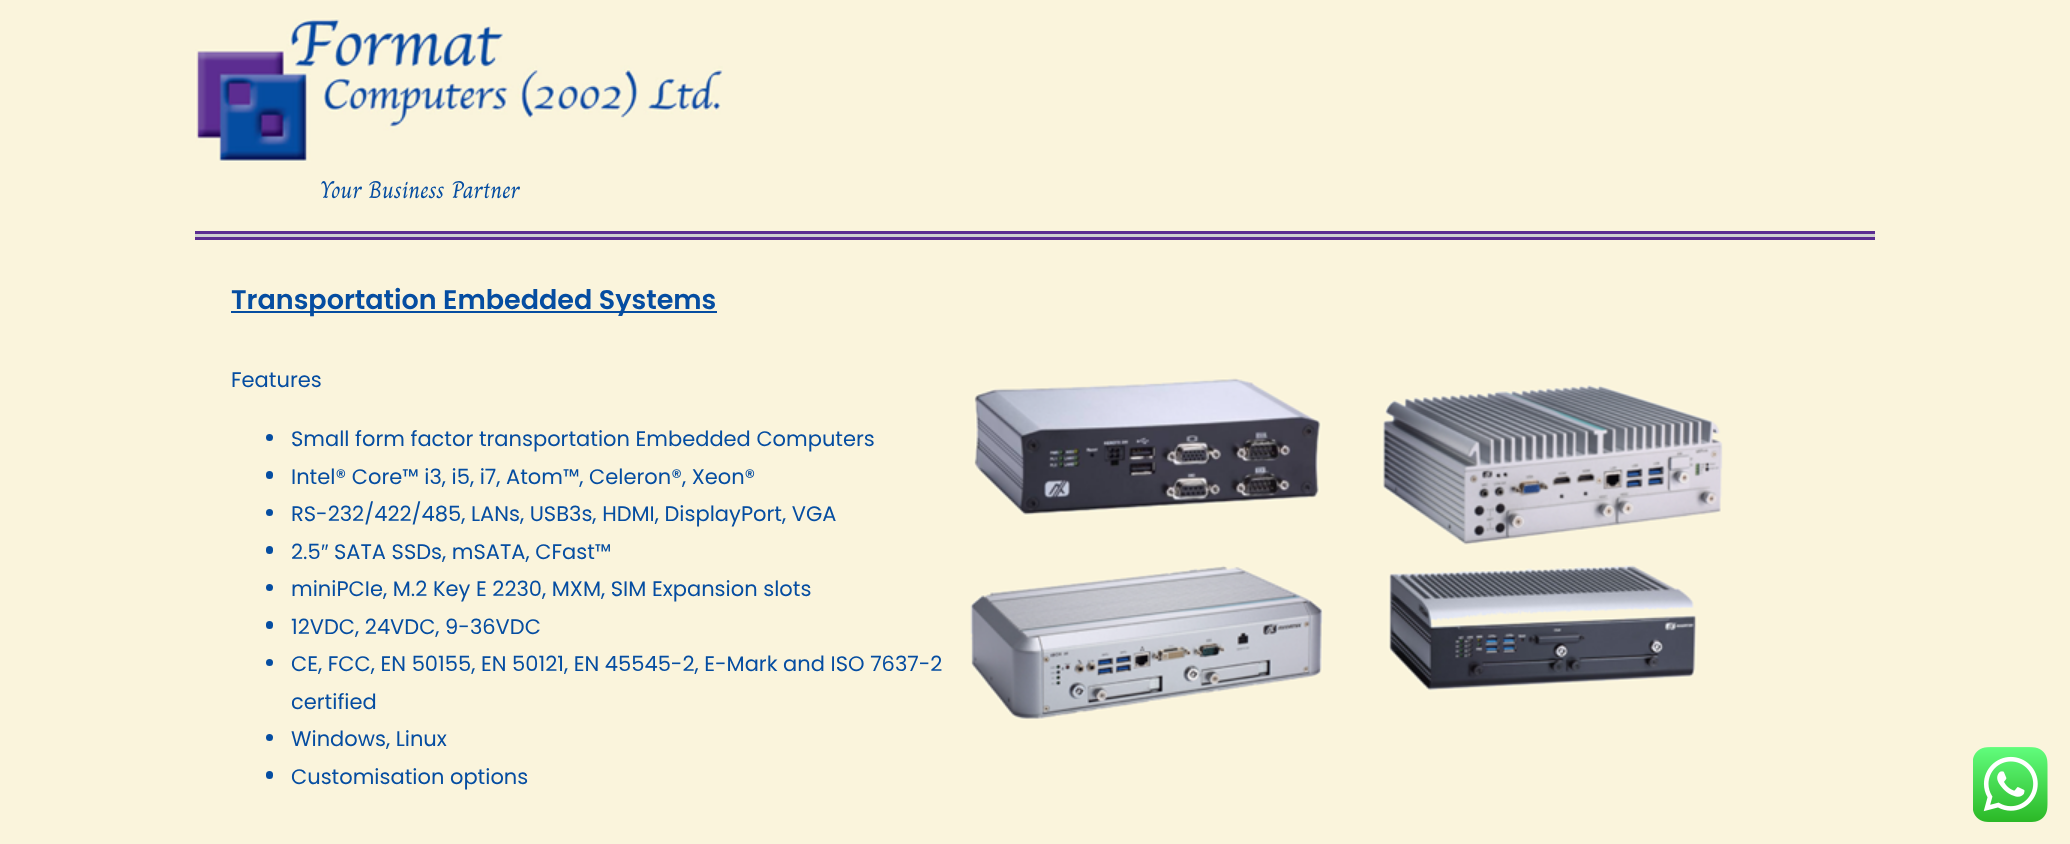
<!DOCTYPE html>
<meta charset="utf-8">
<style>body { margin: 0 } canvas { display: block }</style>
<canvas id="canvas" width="2070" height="844"></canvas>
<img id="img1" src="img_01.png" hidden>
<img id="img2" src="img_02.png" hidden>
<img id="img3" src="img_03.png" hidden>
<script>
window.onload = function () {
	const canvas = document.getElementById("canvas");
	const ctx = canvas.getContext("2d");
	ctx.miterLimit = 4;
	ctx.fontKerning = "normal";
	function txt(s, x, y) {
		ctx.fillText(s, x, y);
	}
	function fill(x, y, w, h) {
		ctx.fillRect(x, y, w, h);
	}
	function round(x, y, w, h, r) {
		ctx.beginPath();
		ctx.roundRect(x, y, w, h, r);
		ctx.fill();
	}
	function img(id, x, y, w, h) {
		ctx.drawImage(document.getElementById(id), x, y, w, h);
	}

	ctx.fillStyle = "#FAF4DC";
	fill(0, 0, 2070, 844);
	img("img1", 195, 18, 528, 144);
	ctx.fillStyle = "#5C2D91";
	fill(195, 231, 1680, 3);
	ctx.fillStyle = "#D0D0D0";
	fill(195, 234, 1680, 3);
	ctx.fillStyle = "#5C2D91";
	fill(195, 237, 1680, 3);
	ctx.fillStyle = "#054DA1";
	fill(231, 311, 486, 2);
	ctx.beginPath();
	ctx.arc(269.5, 437.5, 3.5, 0, Math.PI * 2);
	ctx.fill();
	round(266, 471, 7, 8, 3.5);
	ctx.beginPath();
	ctx.arc(269.5, 512.5, 3.5, 0, Math.PI * 2);
	ctx.fill();
	round(266, 546, 7, 8, 3.5);
	ctx.beginPath();
	ctx.arc(269.5, 587.5, 3.5, 0, Math.PI * 2);
	ctx.fill();
	round(266, 621, 7, 8, 3.5);
	ctx.beginPath();
	ctx.arc(269.5, 662.5, 3.5, 0, Math.PI * 2);
	ctx.fill();
	ctx.beginPath();
	ctx.arc(269.5, 737.5, 3.5, 0, Math.PI * 2);
	ctx.fill();
	round(266, 771, 7, 8, 3.5);
	img("img2", 970, 378, 753, 342);
	img("img3", 1973, 747, 75, 75);
	ctx.font = "24px Charm";
	txt("Your Business Partner", 320, 198);
	ctx.font = "600 27px Poppins";
	txt("Transportation Embedded Systems", 231, 309);
	ctx.font = "21px Poppins";
	txt("Features", 231, 387);
	txt("Small form factor transportation Embedded Computers", 291, 446);
	txt("Intel® Core™ i3, i5, i7, Atom™, Celeron®, Xeon®", 291, 484);
	txt("RS-232/422/485, LANs, USB3s, HDMI, DisplayPort, VGA", 291, 521);
	txt("2.5", 291, 559);
	ctx.font = "21px Liberation Sans";
	txt("″", 321, 559);
	ctx.font = "21px Poppins";
	txt("SATA SSDs, mSATA, CFast™", 334, 559);
	txt("miniPCIe, M.2 Key E 2230, MXM, SIM Expansion slots", 291, 596);
	txt("12VDC, 24VDC, 9-36VDC", 291, 634);
	txt("CE, FCC, EN 50155, EN 50121, EN 45545-2, E-Mark and ISO 7637-2", 291, 671);
	txt("certified", 291, 709);
	txt("Windows, Linux", 291, 746);
	txt("Customisation options", 291, 784);
};
</script>
